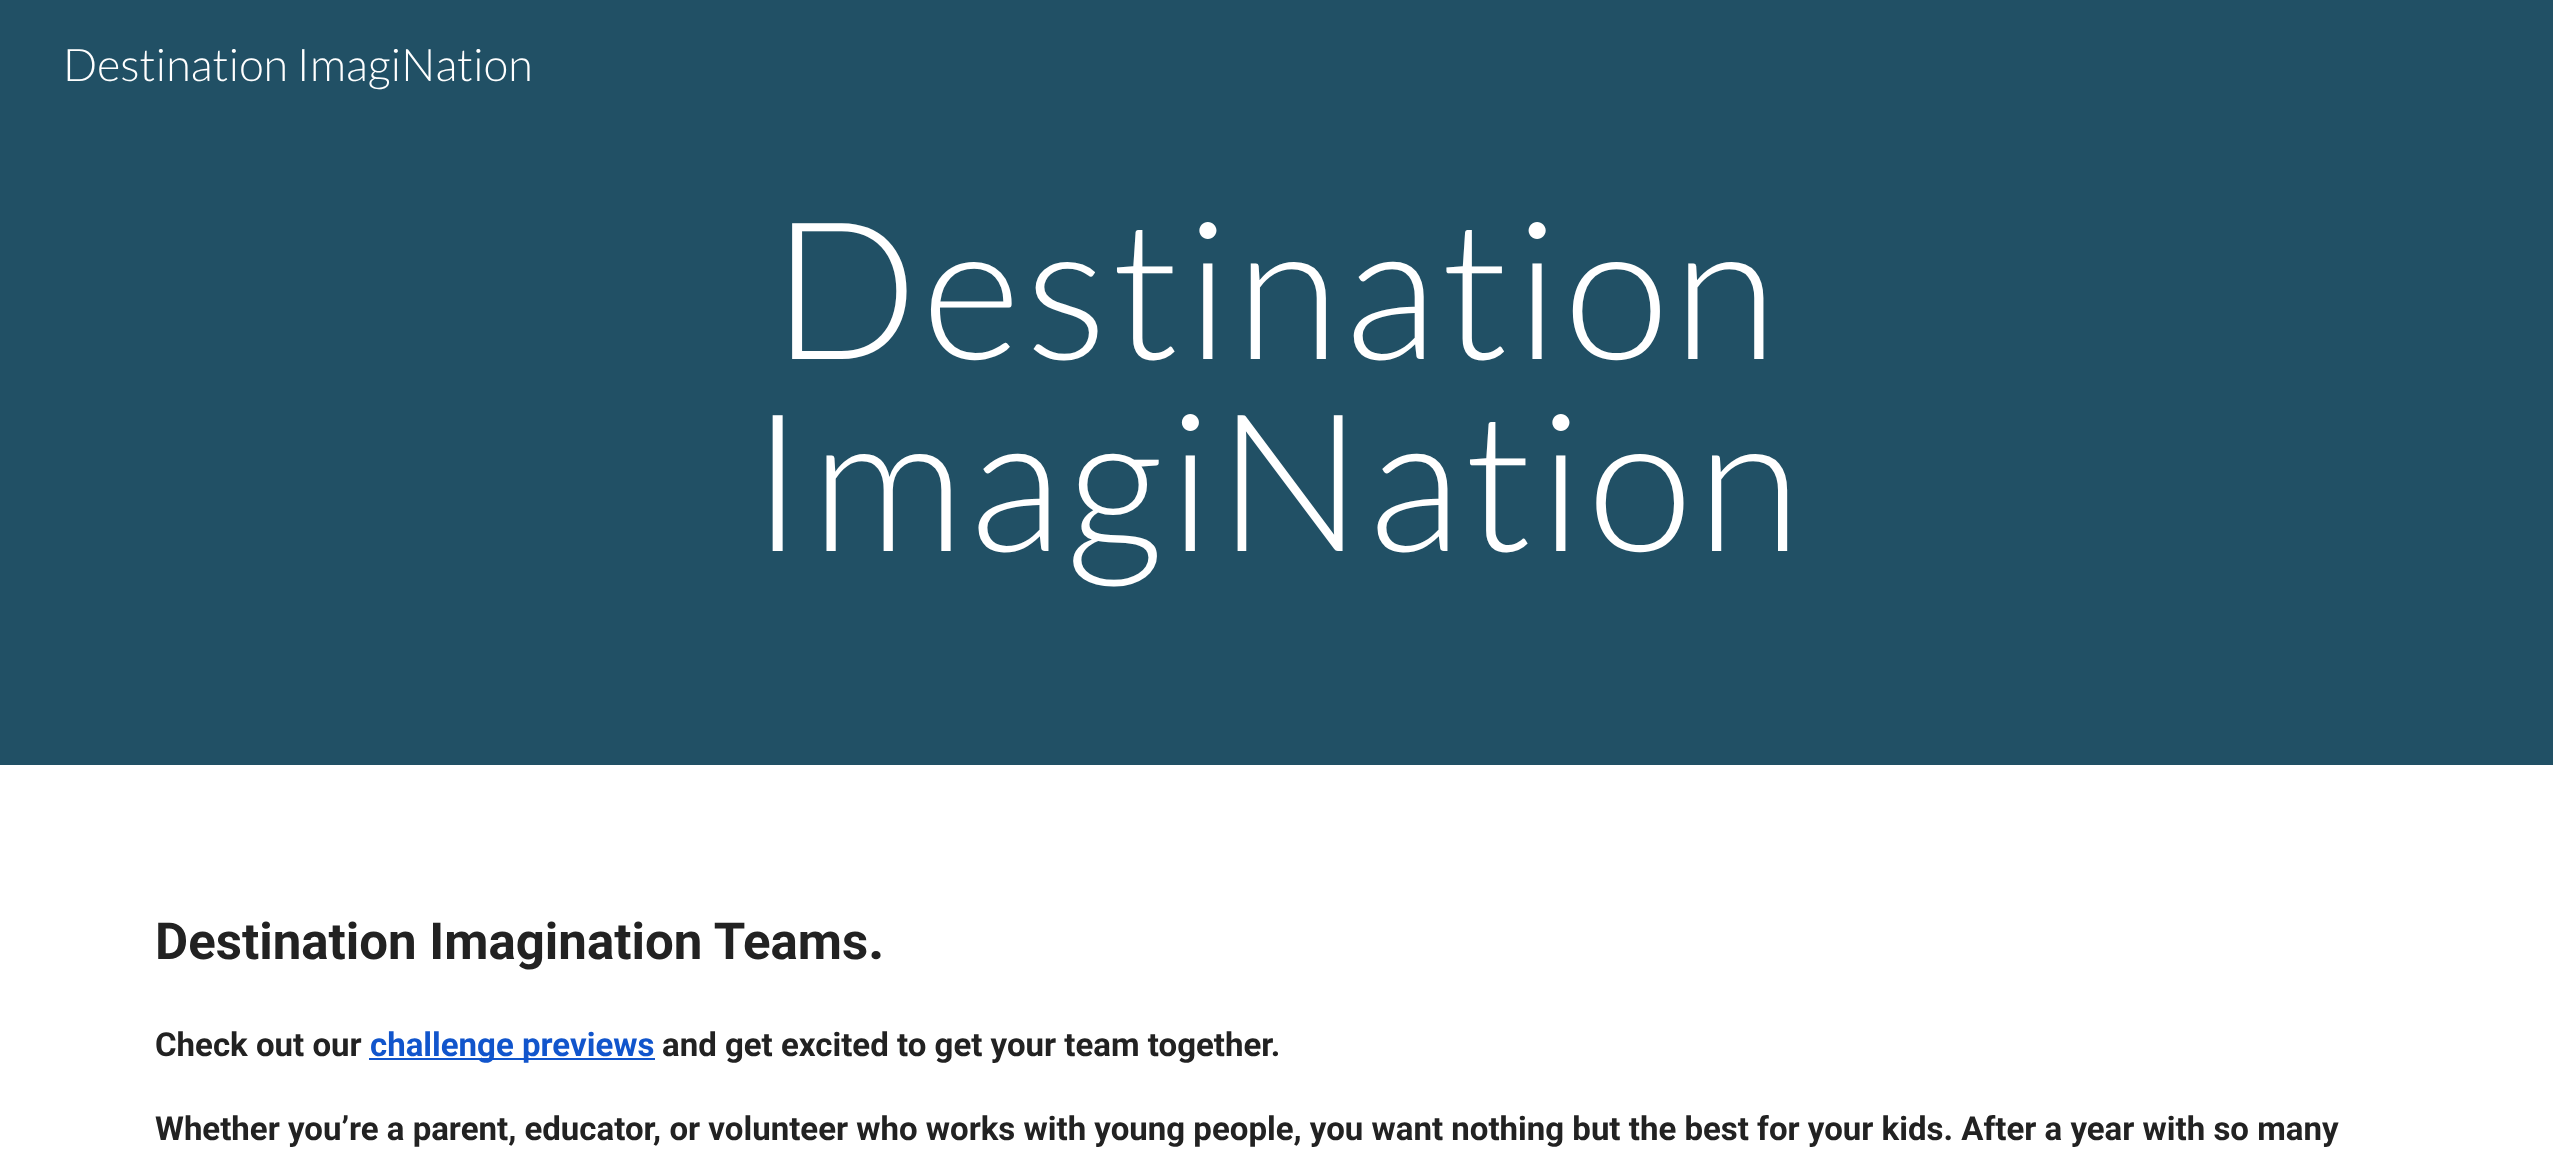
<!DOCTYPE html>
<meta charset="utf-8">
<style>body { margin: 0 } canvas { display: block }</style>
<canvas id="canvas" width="2553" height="1156"></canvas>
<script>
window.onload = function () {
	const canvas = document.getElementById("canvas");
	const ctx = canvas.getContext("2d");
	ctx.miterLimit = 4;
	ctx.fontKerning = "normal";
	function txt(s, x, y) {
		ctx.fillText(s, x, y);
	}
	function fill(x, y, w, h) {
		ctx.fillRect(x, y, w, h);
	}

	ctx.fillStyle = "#FFFFFF";
	fill(0, 0, 2553, 1156);
	ctx.fillStyle = "#215065";
	fill(0, 0, 2553, 765);
	ctx.fillStyle = "#1155CC";
	fill(369, 1058, 286, 2);
	ctx.font = "300 45px Lato";
	ctx.fillStyle = "#FFFFFF";
	txt("Destination ImagiNation", 63, 81);
	ctx.letterSpacing = "4.5px";
	ctx.font = "300 192px Lato";
	txt("Destination", 772, 359);
	txt("ImagiNation", 749, 551);
	ctx.letterSpacing = "0px";
	ctx.font = "bold 51px Roboto";
	ctx.fillStyle = "#222222";
	txt("Destination Imagination Teams", 155, 959);
	ctx.font = "bold 57px Roboto";
	txt(".", 868, 959);
	ctx.font = "bold 33px Roboto";
	txt("Check out our", 155, 1056);
	ctx.fillStyle = "#1155CC";
	txt("challenge previews", 370, 1056);
	ctx.fillStyle = "#222222";
	txt("and get excited to get your team together.", 662, 1056);
	txt("Whether you’re a parent, educator, or volunteer who works with young people, you want nothing but the best for your kids. After a year with so many", 155, 1140);
};
</script>
